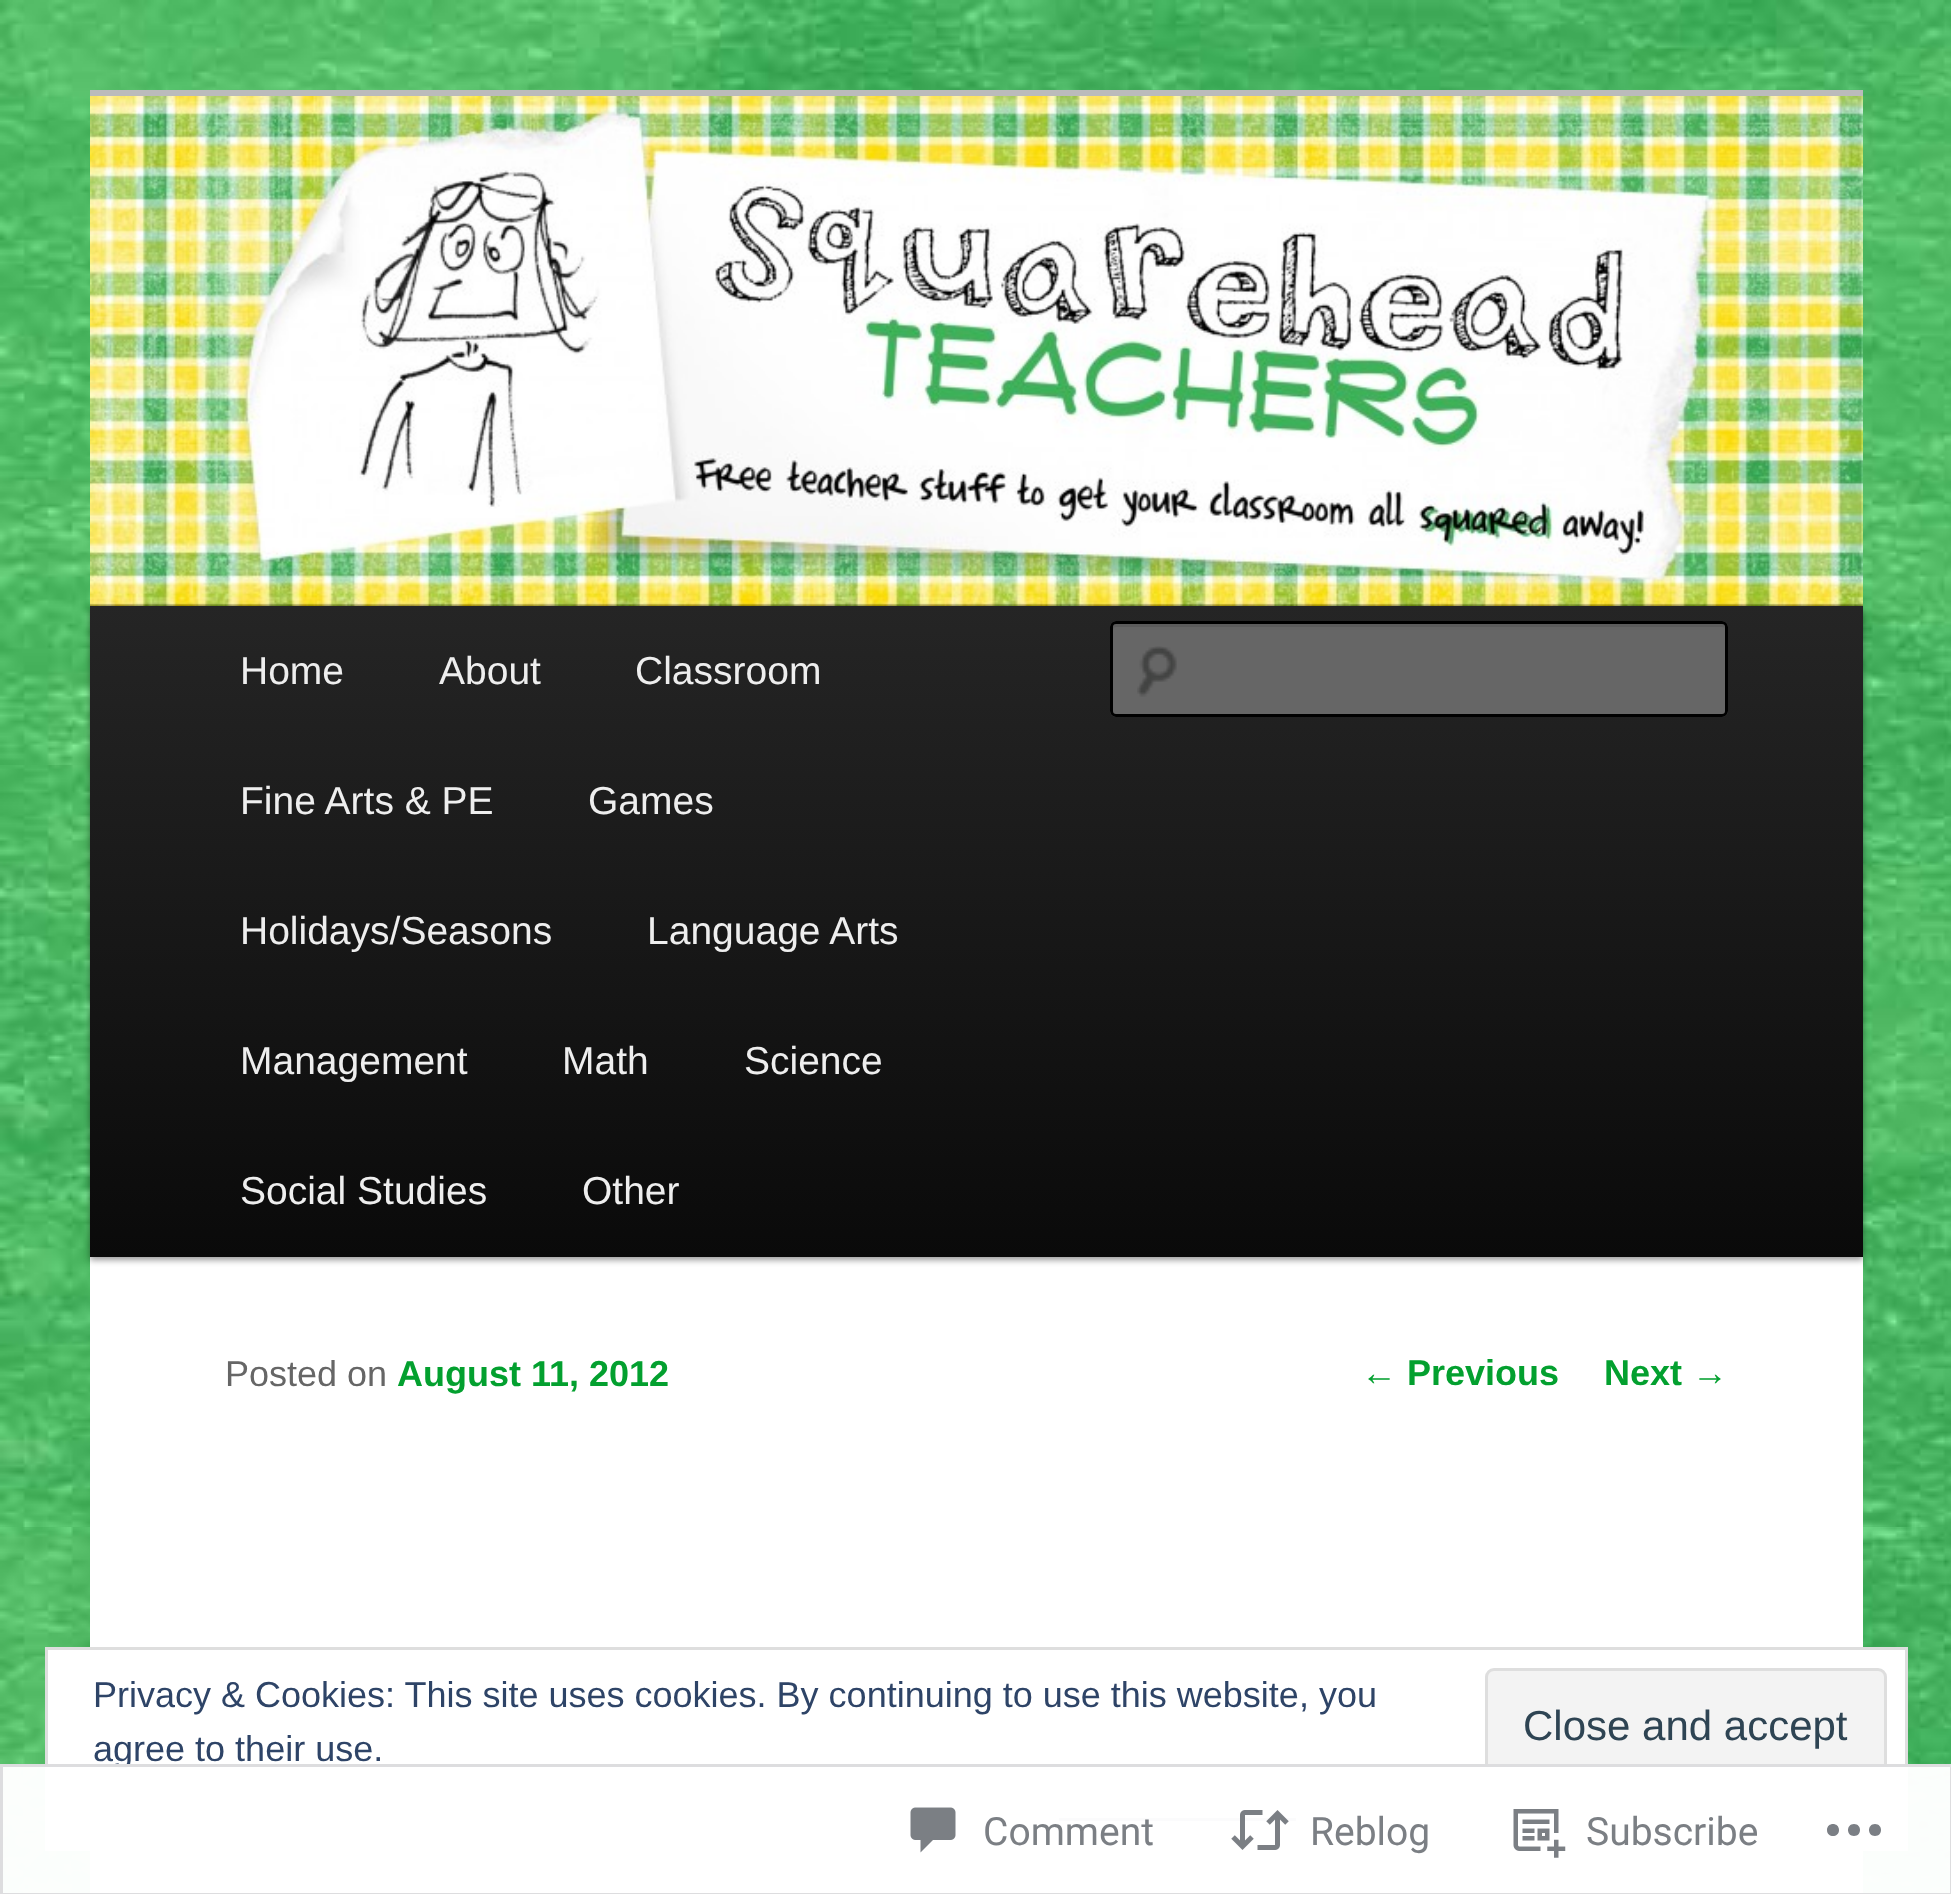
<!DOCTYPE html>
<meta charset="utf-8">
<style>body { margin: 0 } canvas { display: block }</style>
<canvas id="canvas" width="1951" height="1894"></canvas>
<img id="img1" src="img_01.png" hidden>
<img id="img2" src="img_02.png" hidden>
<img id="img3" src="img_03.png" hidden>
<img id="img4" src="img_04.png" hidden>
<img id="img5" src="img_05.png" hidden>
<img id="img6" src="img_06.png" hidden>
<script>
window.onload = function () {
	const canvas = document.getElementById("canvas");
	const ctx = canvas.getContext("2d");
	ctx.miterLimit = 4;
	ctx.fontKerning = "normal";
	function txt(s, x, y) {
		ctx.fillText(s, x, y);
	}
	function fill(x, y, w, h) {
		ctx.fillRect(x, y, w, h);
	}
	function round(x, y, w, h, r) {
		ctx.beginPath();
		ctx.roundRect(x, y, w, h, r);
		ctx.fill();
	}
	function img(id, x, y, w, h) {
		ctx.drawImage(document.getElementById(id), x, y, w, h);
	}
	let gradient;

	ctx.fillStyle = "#FFFFFF";
	fill(0, 0, 1951, 1894);
	img("img1", 0, 0, 1951, 1894);
	fill(90, 1257, 1773, 637);
	ctx.fillStyle = "#BBBBBB";
	fill(90, 90, 1773, 6);
	ctx.fillStyle = "rgba(0, 0, 0, 0.4)";
	ctx.filter = "blur(3px)";
	ctx.beginPath();
	ctx.rect(90, 609, 1773, 651);
	ctx.fill();
	ctx.filter = "none";
	img("img2", 90, 96, 1773, 510);
	gradient = ctx.createLinearGradient(977, 606, 977, 1257);
	gradient.addColorStop(0, "#252525");
	gradient.addColorStop(1, "#0A0A0A");
	ctx.fillStyle = gradient;
	fill(90, 606, 1773, 651);
	ctx.fillStyle = "#666666";
	round(1110, 621, 618, 96, 6);
	img("img3", 1137, 646, 40, 51);
	ctx.fillStyle = "#5C5C5C";
	ctx.beginPath();
	ctx.moveTo(1116, 627);
	ctx.lineTo(1722, 627);
	ctx.bezierCurveTo(1724, 627, 1725, 628, 1725, 630);
	ctx.lineTo(1724, 625);
	ctx.lineTo(1722, 624);
	ctx.lineTo(1116, 624);
	ctx.bezierCurveTo(1113, 624, 1113, 628, 1113, 630);
	ctx.bezierCurveTo(1113, 628, 1114, 627, 1116, 627);
	ctx.closePath();
	ctx.fill();
	ctx.beginPath();
	ctx.roundRect(1111.5, 622.5, 615, 93, 4.5);
	ctx.strokeStyle = "#000000";
	ctx.lineWidth = 3;
	ctx.stroke();
	ctx.fillStyle = "#FFFFFF";
	ctx.beginPath();
	ctx.rect(46.5, 1648.5, 1860, 201);
	ctx.fill();
	ctx.strokeStyle = "#DEDEDE";
	ctx.stroke();
	ctx.fillStyle = "#F3F3F3";
	ctx.beginPath();
	ctx.roundRect(1486.5, 1669.5, 399, 114, 7.5);
	ctx.fill();
	ctx.stroke();
	ctx.fillStyle = "#2E4467";
	fill(1059, 1818, 237, 3);
	ctx.font = "39px Liberation Sans";
	ctx.fillStyle = "#EEEEEE";
	txt("Home", 240, 684);
	txt("About", 439, 684);
	txt("Classroom", 635, 684);
	txt("Fine Arts & PE", 240, 814);
	txt("Games", 588, 814);
	txt("Holidays/Seasons", 240, 944);
	txt("Language Arts", 647, 944);
	txt("Management", 240, 1074);
	txt("Math", 562, 1074);
	txt("Science", 744, 1074);
	txt("Social Studies", 240, 1204);
	txt("Other", 582, 1204);
	ctx.font = "36px Liberation Sans";
	ctx.fillStyle = "#666666";
	txt("Posted on", 225, 1386);
	ctx.font = "bold 36px Liberation Sans";
	ctx.fillStyle = "#03A02F";
	txt("August 11, 2012", 397, 1386);
	ctx.font = "36px Liberation Sans";
	txt("←", 1361, 1385);
	ctx.font = "bold 36px Liberation Sans";
	txt("Previous", 1407, 1385);
	txt("Next", 1604, 1385);
	ctx.font = "36px Liberation Sans";
	txt("→", 1692, 1385);
	ctx.fillStyle = "#2E4467";
	txt("Privacy & Cookies: This site uses cookies. By continuing to use this website, you", 93, 1707);
	txt("agree to their use.", 93, 1761);
	ctx.font = "42px Liberation Sans";
	ctx.fillStyle = "#2E4453";
	txt("Close and accept", 1523, 1740);
	ctx.fillStyle = "rgba(255, 255, 255, 0.98)";
	fill(0, 1764, 1951, 130);
	ctx.strokeStyle = "rgba(220, 220, 222, 0.98)";
	ctx.strokeRect(1.5, 1765.5, 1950, 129);
	img("img4", 910, 1807, 46, 46);
	ctx.font = "39px Roboto";
	ctx.fillStyle = "#7B7F84";
	txt("Comment", 983, 1845);
	img("img5", 1231, 1810, 58, 40);
	txt("Reblog", 1310, 1845);
	img("img6", 1513, 1809, 53, 49);
	txt("Subscribe", 1586, 1845);
	ctx.fillStyle = "#7B7F85";
	ctx.beginPath();
	ctx.moveTo(1839, 1830);
	ctx.bezierCurveTo(1839, 1838, 1827, 1838, 1827, 1830);
	ctx.bezierCurveTo(1827, 1822, 1839, 1822, 1839, 1830);
	ctx.closePath();
	ctx.moveTo(1875, 1824);
	ctx.bezierCurveTo(1867, 1824, 1867, 1836, 1875, 1836);
	ctx.bezierCurveTo(1883, 1836, 1883, 1824, 1875, 1824);
	ctx.closePath();
	ctx.moveTo(1854, 1824);
	ctx.bezierCurveTo(1846, 1824, 1846, 1836, 1854, 1836);
	ctx.bezierCurveTo(1862, 1836, 1862, 1824, 1854, 1824);
	ctx.closePath();
	ctx.fill();
};
</script>
